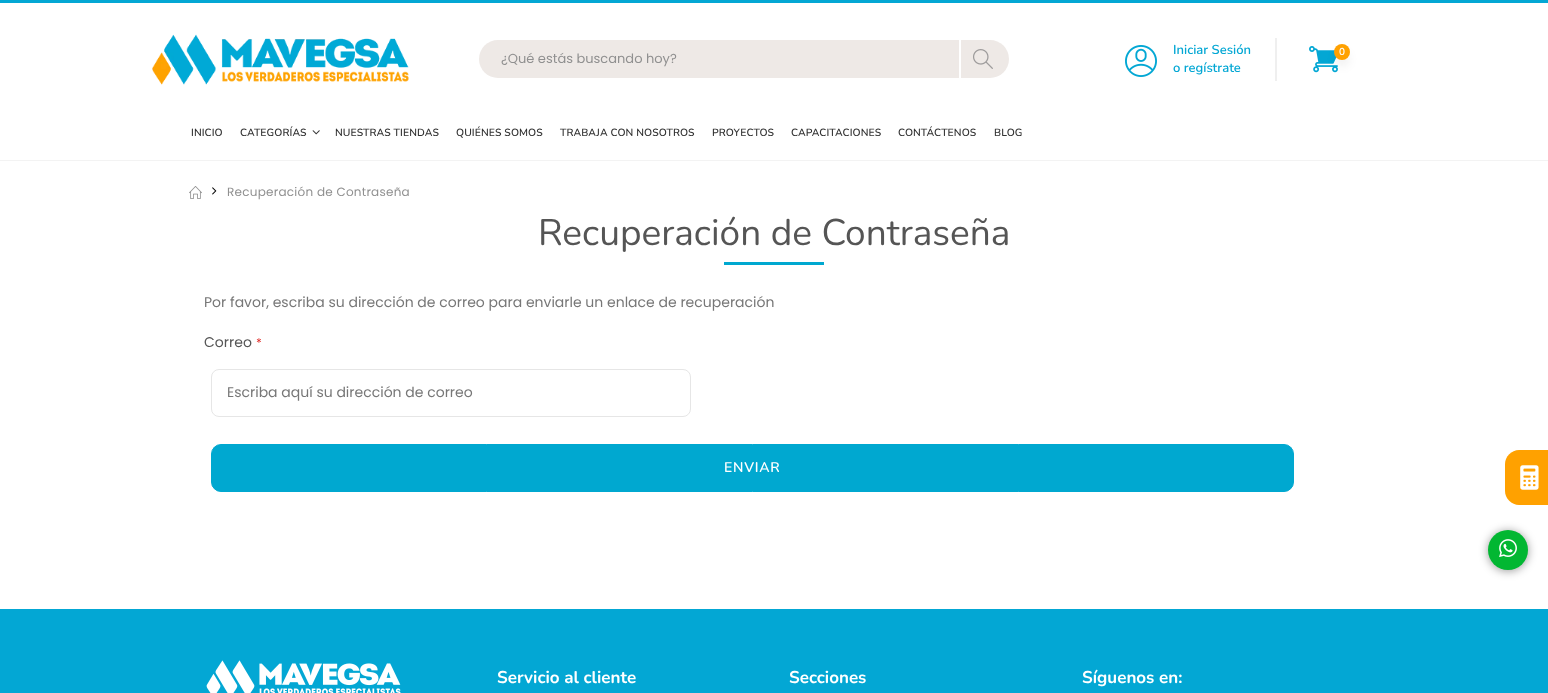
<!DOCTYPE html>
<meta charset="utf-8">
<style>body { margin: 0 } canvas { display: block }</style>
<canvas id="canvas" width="1548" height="693"></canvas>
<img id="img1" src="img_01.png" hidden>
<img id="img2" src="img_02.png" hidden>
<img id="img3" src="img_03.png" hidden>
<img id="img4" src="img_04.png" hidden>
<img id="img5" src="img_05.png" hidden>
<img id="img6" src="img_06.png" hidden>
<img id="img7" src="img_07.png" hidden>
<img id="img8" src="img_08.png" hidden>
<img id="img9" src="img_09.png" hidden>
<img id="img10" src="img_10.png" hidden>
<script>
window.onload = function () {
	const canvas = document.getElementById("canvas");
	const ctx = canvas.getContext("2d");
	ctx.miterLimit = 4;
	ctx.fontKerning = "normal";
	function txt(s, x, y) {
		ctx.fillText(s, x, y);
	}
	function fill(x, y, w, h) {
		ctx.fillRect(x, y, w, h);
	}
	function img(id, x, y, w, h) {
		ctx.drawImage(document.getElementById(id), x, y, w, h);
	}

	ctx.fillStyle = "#FFFFFF";
	fill(0, 0, 1548, 693);
	ctx.fillStyle = "#03A7D4";
	fill(0, 0, 1548, 3);
	ctx.fillStyle = "#F3F3F3";
	fill(0, 160, 1548, 1);
	img("img1", 152, 34, 257, 51);
	ctx.fillStyle = "#EEE9E6";
	ctx.beginPath();
	ctx.roundRect(479, 40, 480, 38, [19, 0, 0, 19]);
	ctx.fill();
	ctx.beginPath();
	ctx.roundRect(959, 40, 50, 38, [0, 19, 19, 0]);
	ctx.fill();
	ctx.fillStyle = "#FFFFFF";
	fill(959, 40, 2, 38);
	img("img2", 973, 49, 20, 20);
	img("img3", 1125, 45, 32, 32);
	ctx.fillStyle = "#EFEFEF";
	fill(1275, 38, 2, 43);
	img("img4", 1309, 46, 29, 27);
	ctx.fillStyle = "rgba(0, 0, 0, 0.05)";
	ctx.filter = "blur(4px)";
	ctx.beginPath();
	ctx.roundRect(1334, 51, 16, 16, 8);
	ctx.fill();
	ctx.filter = "none";
	ctx.fillStyle = "#FFA100";
	ctx.beginPath();
	ctx.arc(1342, 52, 8, 0, Math.PI * 2);
	ctx.fill();
	img("img5", 312, 130, 8, 5);
	img("img6", 189, 186, 13, 13);
	img("img7", 212, 187, 5, 8);
	ctx.fillStyle = "#00A8D0";
	fill(724, 262, 100, 3);
	ctx.beginPath();
	ctx.roundRect(211.5, 369.5, 479, 47, 7.5);
	ctx.strokeStyle = "#E6E6E6";
	ctx.stroke();
	ctx.beginPath();
	ctx.roundRect(211.5, 444.5, 1082, 47, 9.5);
	ctx.fill();
	ctx.strokeStyle = "#00A8D0";
	ctx.stroke();
	ctx.fillStyle = "#FFA100";
	ctx.beginPath();
	ctx.moveTo(1519, 450);
	ctx.lineTo(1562, 450);
	ctx.lineTo(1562, 505);
	ctx.lineTo(1519, 505);
	ctx.bezierCurveTo(1511.5, 505, 1505, 498.5, 1505, 491);
	ctx.lineTo(1505, 464);
	ctx.bezierCurveTo(1505, 456.5, 1511.5, 450, 1519, 450);
	ctx.closePath();
	ctx.fill();
	img("img8", 1520, 465, 19, 25);
	ctx.fillStyle = "rgba(0, 0, 0, 0.4)";
	ctx.filter = "blur(5px)";
	ctx.beginPath();
	ctx.roundRect(1488, 531, 40, 40, 20);
	ctx.fill();
	ctx.filter = "none";
	ctx.fillStyle = "#02B732";
	ctx.beginPath();
	ctx.arc(1508, 550, 20, 0, Math.PI * 2);
	ctx.fill();
	img("img9", 1499, 539, 18, 19);
	ctx.fillStyle = "#03A7D4";
	fill(0, 609, 1548, 84);
	img("img10", 206, 660, 195, 33);
	ctx.font = "13px Poppins";
	ctx.fillStyle = "#909090";
	txt("¿Qué estás buscando hoy?", 501, 63);
	ctx.font = "600 13px Nunito";
	ctx.fillStyle = "#03A7D4";
	txt("Iniciar Sesión", 1173, 54);
	txt("o regístrate", 1173, 72);
	ctx.font = "600 10px Nunito";
	ctx.fillStyle = "#FFFFFF";
	txt("0", 1339, 55);
	ctx.letterSpacing = "0.1px";
	ctx.font = "600 10.4px Nunito";
	ctx.fillStyle = "#333333";
	txt("INICIO", 191, 136);
	txt("CATEGORÍAS", 240, 136);
	txt("NUESTRAS TIENDAS", 335, 136);
	txt("QUIÉNES SOMOS", 456, 136);
	txt("TRABAJA CON NOSOTROS", 560, 136);
	txt("PROYECTOS", 712, 136);
	txt("CAPACITACIONES", 791, 136);
	txt("CONTÁCTENOS", 898, 136);
	txt("BLOG", 994, 136);
	ctx.letterSpacing = "0.25px";
	ctx.font = "12px Poppins";
	ctx.fillStyle = "#909090";
	txt("Recuperación de Contraseña", 227, 196);
	ctx.letterSpacing = "0px";
	ctx.font = "37px Nunito";
	ctx.fillStyle = "#555555";
	txt("Recuperación de Contraseña", 538, 245);
	ctx.font = "14px Poppins";
	ctx.fillStyle = "#777777";
	txt("Por favor, escriba su dirección de correo para enviarle un enlace de recuperación", 204, 307);
	ctx.fillStyle = "#555555";
	txt("Correo", 204, 347);
	ctx.font = "12px Poppins";
	ctx.fillStyle = "#E02B27";
	txt("*", 256, 347);
	ctx.font = "14px Poppins";
	ctx.fillStyle = "#777777";
	txt("Escriba aquí su dirección de correo", 227, 397);
	ctx.letterSpacing = "0.75px";
	ctx.font = "600 14px Nunito";
	ctx.fillStyle = "#FFFFFF";
	txt("ENVIAR", 724, 472);
	ctx.letterSpacing = "0px";
	ctx.font = "bold 17px Nunito";
	txt("Servicio al cliente", 497, 683);
	txt("Secciones", 789, 683);
	txt("Síguenos en:", 1082, 683);
};
</script>
